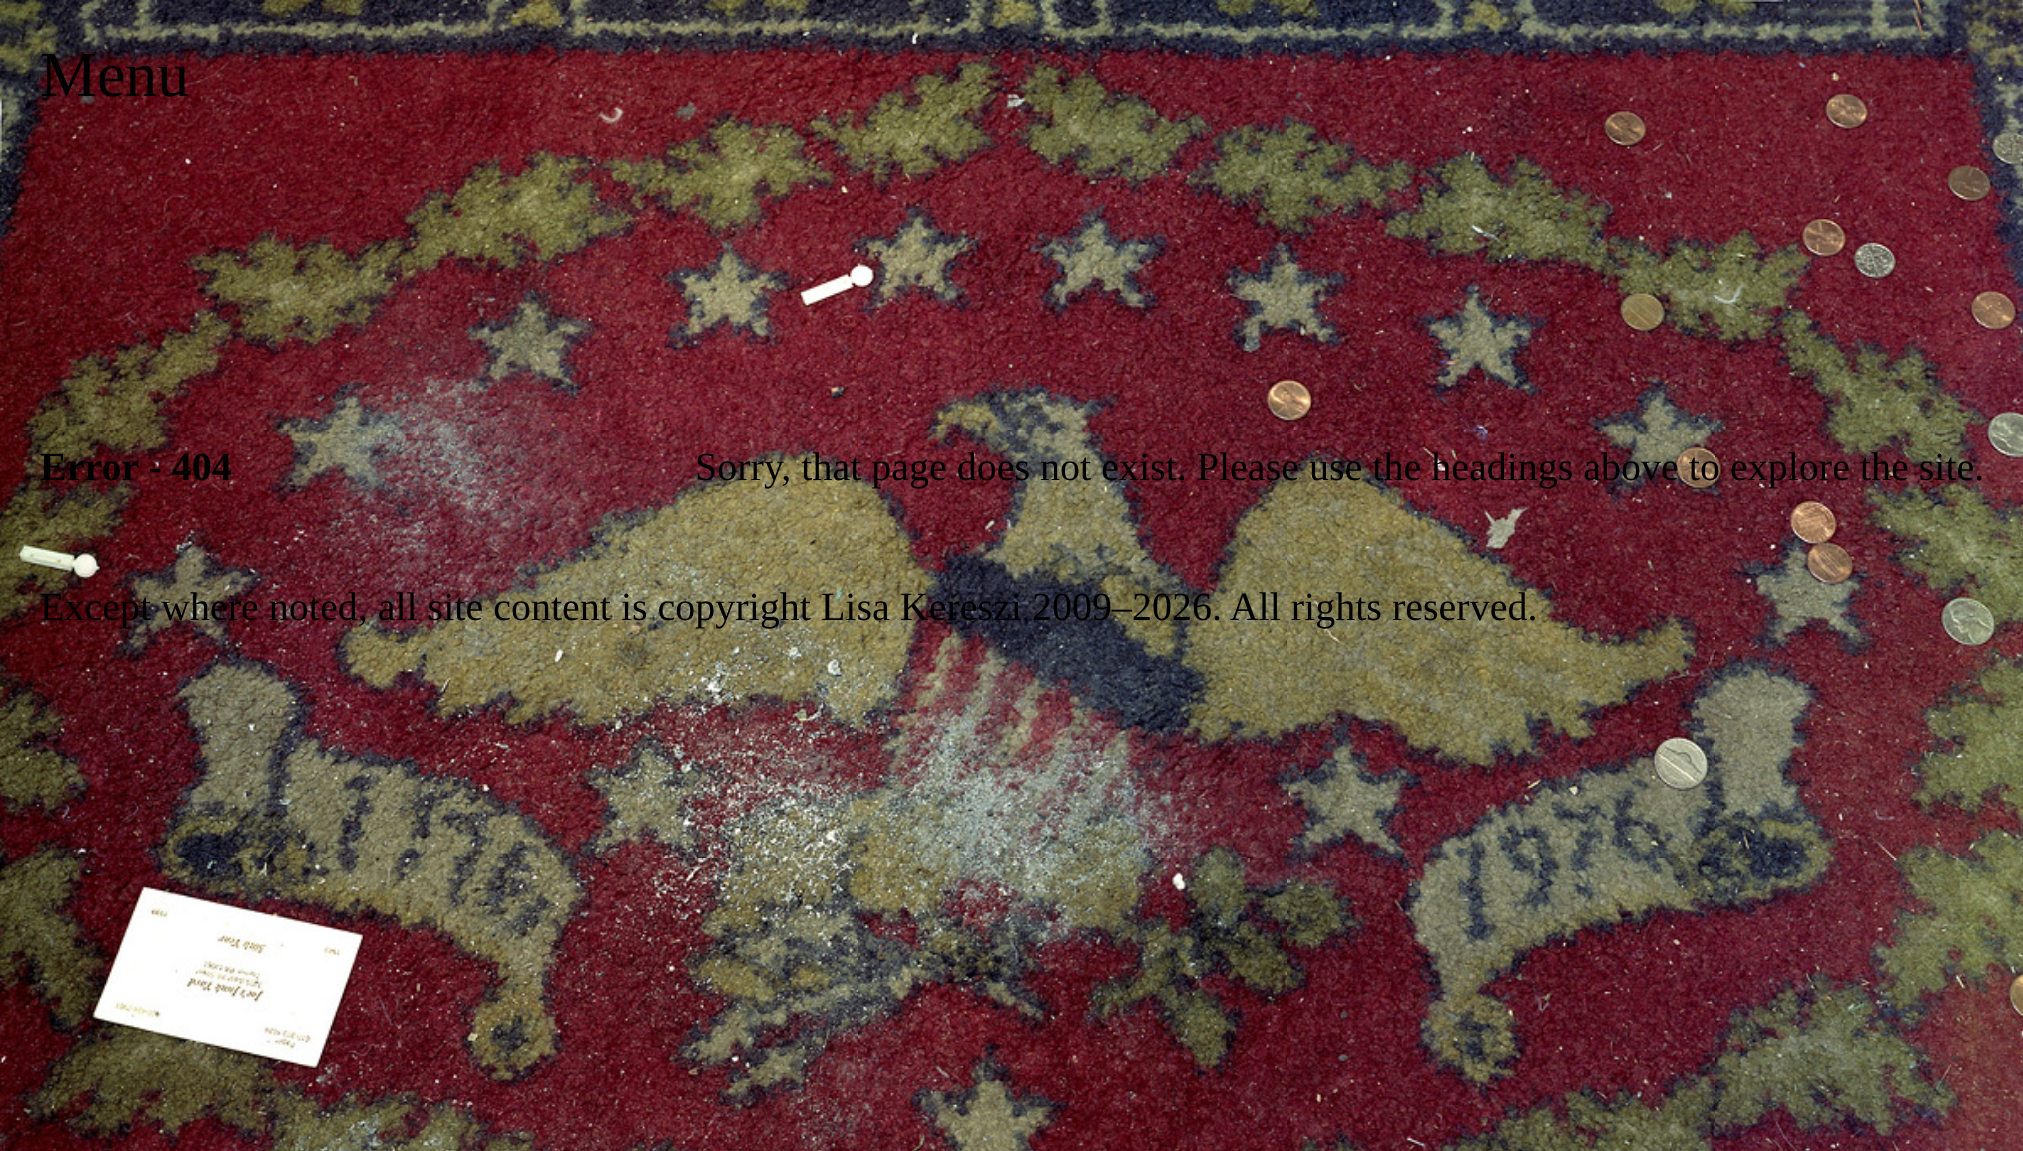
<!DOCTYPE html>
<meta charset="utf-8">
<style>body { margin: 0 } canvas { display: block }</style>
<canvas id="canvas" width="2023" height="1151"></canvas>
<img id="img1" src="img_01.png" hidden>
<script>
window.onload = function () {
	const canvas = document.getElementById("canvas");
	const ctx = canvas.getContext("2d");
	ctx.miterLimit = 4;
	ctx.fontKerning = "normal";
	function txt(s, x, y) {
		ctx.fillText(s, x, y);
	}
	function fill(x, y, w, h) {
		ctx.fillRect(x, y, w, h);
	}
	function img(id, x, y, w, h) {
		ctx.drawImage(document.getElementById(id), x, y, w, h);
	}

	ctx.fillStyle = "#FFFFFF";
	fill(0, 0, 2023, 1151);
	img("img1", 0, 0, 2023, 1151);
	ctx.font = "64px Liberation Serif";
	ctx.fillStyle = "#000000";
	txt("Menu", 40, 96);
	ctx.font = "bold 40px Liberation Serif";
	txt("Error - 404", 40, 480);
	ctx.font = "40px Liberation Serif";
	txt("Sorry, that page does not exist. Please use the headings above to explore the site.", 695, 480);
	txt("Except where noted, all site content is copyright Lisa Kereszi 2009–2026. All rights reserved.", 40, 620);
};
</script>
